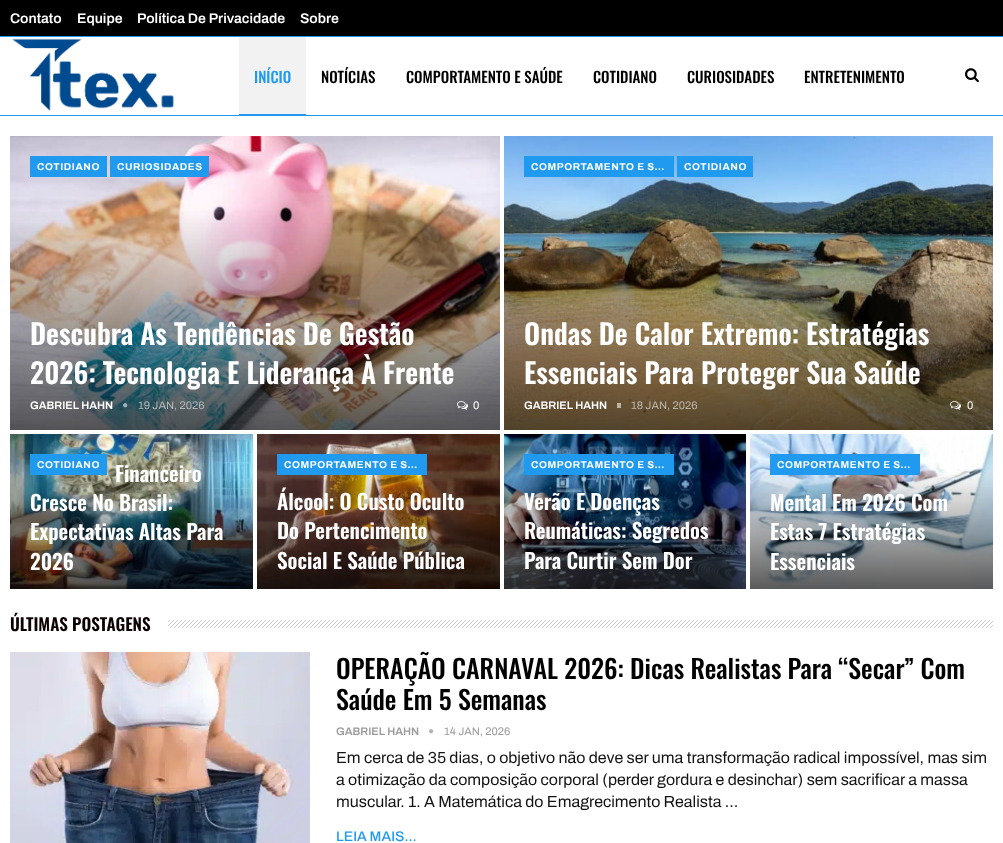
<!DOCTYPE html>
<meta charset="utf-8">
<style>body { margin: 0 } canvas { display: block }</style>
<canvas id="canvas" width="1003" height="843"></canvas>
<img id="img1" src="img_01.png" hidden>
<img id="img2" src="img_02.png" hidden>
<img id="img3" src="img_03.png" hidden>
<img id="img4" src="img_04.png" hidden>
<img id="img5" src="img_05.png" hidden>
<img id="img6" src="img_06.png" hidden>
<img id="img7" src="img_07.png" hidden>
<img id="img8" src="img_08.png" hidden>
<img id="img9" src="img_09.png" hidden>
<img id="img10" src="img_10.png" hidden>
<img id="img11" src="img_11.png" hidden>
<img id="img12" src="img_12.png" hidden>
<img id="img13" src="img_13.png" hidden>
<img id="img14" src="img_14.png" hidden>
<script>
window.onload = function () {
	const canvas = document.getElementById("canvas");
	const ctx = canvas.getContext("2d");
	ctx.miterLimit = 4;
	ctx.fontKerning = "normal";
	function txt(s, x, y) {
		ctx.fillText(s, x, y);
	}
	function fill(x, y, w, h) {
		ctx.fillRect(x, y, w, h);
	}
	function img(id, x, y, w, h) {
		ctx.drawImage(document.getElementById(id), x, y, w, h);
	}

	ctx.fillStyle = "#FFFFFF";
	fill(0, 0, 1003, 843);
	ctx.fillStyle = "#209AEF";
	fill(0, 115, 1003, 1);
	ctx.fillStyle = "#000000";
	fill(0, 0, 1003, 36);
	ctx.fillStyle = "#209AEF";
	fill(0, 36, 1003, 1);
	img("img1", 12, 38, 162, 73);
	ctx.fillStyle = "#F2F2F2";
	fill(239, 37, 67, 77);
	ctx.fillStyle = "#209AEF";
	fill(239, 114, 67, 1);
	img("img2", 965, 68, 14, 15);
	img("img3", 10, 136, 490, 294);
	fill(30, 156, 77, 21);
	fill(110, 156, 99, 21);
	img("img4", 123, 403, 5, 5);
	img("img5", 457, 401, 11, 9);
	img("img6", 504, 136, 489, 294);
	fill(524, 156, 150, 21);
	fill(677, 156, 76, 21);
	ctx.fillStyle = "rgba(255, 255, 255, 0.57)";
	fill(617, 403, 4, 5);
	img("img7", 950, 401, 11, 9);
	img("img8", 10, 434, 243, 155);
	ctx.fillStyle = "#209AEF";
	fill(30, 454, 77, 21);
	img("img9", 257, 434, 243, 155);
	fill(277, 454, 150, 21);
	img("img10", 504, 434, 242, 155);
	fill(524, 454, 150, 21);
	img("img11", 750, 434, 243, 155);
	fill(770, 454, 150, 21);
	img("img12", 168, 620, 825, 8);
	img("img13", 10, 652, 300, 191);
	img("img14", 429, 729, 5, 5);
	ctx.font = "600 14px Archivo";
	ctx.fillStyle = "#FFFFFF";
	txt("Contato", 10, 23);
	txt("Equipe", 77, 23);
	txt("Política De Privacidade", 137, 23);
	txt("Sobre", 300, 23);
	ctx.font = "500 15px Oswald";
	ctx.fillStyle = "#209AEF";
	txt("INÍCIO", 254, 83);
	ctx.fillStyle = "#000000";
	txt("NOTÍCIAS", 321, 83);
	txt("COMPORTAMENTO E SAÚDE", 406, 83);
	txt("COTIDIANO", 593, 83);
	txt("CURIOSIDADES", 687, 83);
	txt("ENTRETENIMENTO", 804, 83);
	ctx.letterSpacing = "0.6px";
	ctx.font = "bold 10px Archivo";
	ctx.fillStyle = "#FFFFFF";
	txt("COTIDIANO", 37, 170);
	txt("CURIOSIDADES", 117, 170);
	ctx.letterSpacing = "0px";
	ctx.font = "600 28px Oswald";
	txt("Descubra As Tendências De Gestão", 30, 345);
	txt("2026: Tecnologia E Liderança À Frente", 30, 384);
	ctx.font = "600 11px Archivo";
	txt("GABRIEL HAHN", 30, 409);
	ctx.font = "11px Archivo";
	ctx.fillStyle = "#AFB8BB";
	txt("19 JAN, 2026", 138, 409);
	ctx.fillStyle = "#FFFFFF";
	txt("0", 473, 409);
	ctx.letterSpacing = "0.6px";
	ctx.font = "bold 10px Archivo";
	txt("COMPORTAMENTO E S…", 531, 170);
	txt("COTIDIANO", 684, 170);
	ctx.letterSpacing = "0px";
	ctx.font = "600 28px Oswald";
	txt("Ondas De Calor Extremo: Estratégias", 524, 345);
	txt("Essenciais Para Proteger Sua Saúde", 524, 384);
	ctx.font = "600 11px Archivo";
	txt("GABRIEL HAHN", 524, 409);
	ctx.font = "11px Archivo";
	ctx.fillStyle = "#BDB4A7";
	txt("18 JAN, 2026", 631, 409);
	ctx.fillStyle = "#FFFFFF";
	txt("0", 967, 409);
	ctx.letterSpacing = "0.6px";
	ctx.font = "bold 10px Archivo";
	txt("COTIDIANO", 37, 468);
	ctx.letterSpacing = "0px";
	ctx.font = "600 21px Oswald";
	txt("Financeiro", 115, 482);
	txt("Cresce No Brasil:", 30, 511);
	txt("Expectativas Altas Para", 30, 540);
	txt("2026", 30, 570);
	ctx.letterSpacing = "0.6px";
	ctx.font = "bold 10px Archivo";
	txt("COMPORTAMENTO E S…", 284, 468);
	ctx.letterSpacing = "0px";
	ctx.font = "600 21px Oswald";
	txt("Álcool: O Custo Oculto", 277, 510);
	txt("Do Pertencimento", 277, 539);
	txt("Social E Saúde Pública", 277, 569);
	ctx.letterSpacing = "0.6px";
	ctx.font = "bold 10px Archivo";
	txt("COMPORTAMENTO E S…", 531, 468);
	ctx.letterSpacing = "0px";
	ctx.font = "600 21px Oswald";
	txt("Verão E Doenças", 524, 510);
	txt("Reumáticas: Segredos", 524, 539);
	txt("Para Curtir Sem Dor", 524, 569);
	ctx.letterSpacing = "0.6px";
	ctx.font = "bold 10px Archivo";
	txt("COMPORTAMENTO E S…", 777, 468);
	ctx.letterSpacing = "0px";
	ctx.font = "600 21px Oswald";
	txt("Mental Em 2026 Com", 770, 511);
	txt("Estas 7 Estratégias", 770, 540);
	txt("Essenciais", 770, 570);
	ctx.font = "600 17px Oswald";
	ctx.fillStyle = "#0A0000";
	txt("ÚLTIMAS POSTAGENS", 10, 631);
	ctx.font = "500 26px Oswald";
	ctx.fillStyle = "#000000";
	txt("OPERAÇÃO CARNAVAL 2026: Dicas Realistas Para “Secar” Com", 336, 679);
	txt("Saúde Em 5 Semanas", 336, 710);
	ctx.font = "600 11px Archivo";
	ctx.fillStyle = "#9C9C9C";
	txt("GABRIEL HAHN", 336, 735);
	ctx.font = "11px Archivo";
	txt("14 JAN, 2026", 444, 735);
	ctx.font = "16px Archivo";
	ctx.fillStyle = "#131313";
	txt("Em cerca de 35 dias, o objetivo não deve ser uma transformação radical impossível, mas sim", 336, 763);
	txt("a otimização da composição corporal (perder gordura e desinchar) sem sacrificar a massa", 336, 785);
	txt("muscular. 1. A Matemática do Emagrecimento Realista …", 336, 807);
	ctx.font = "500 14px Archivo";
	ctx.fillStyle = "#209AEF";
	txt("LEIA MAIS...", 336, 841);
};
</script>
